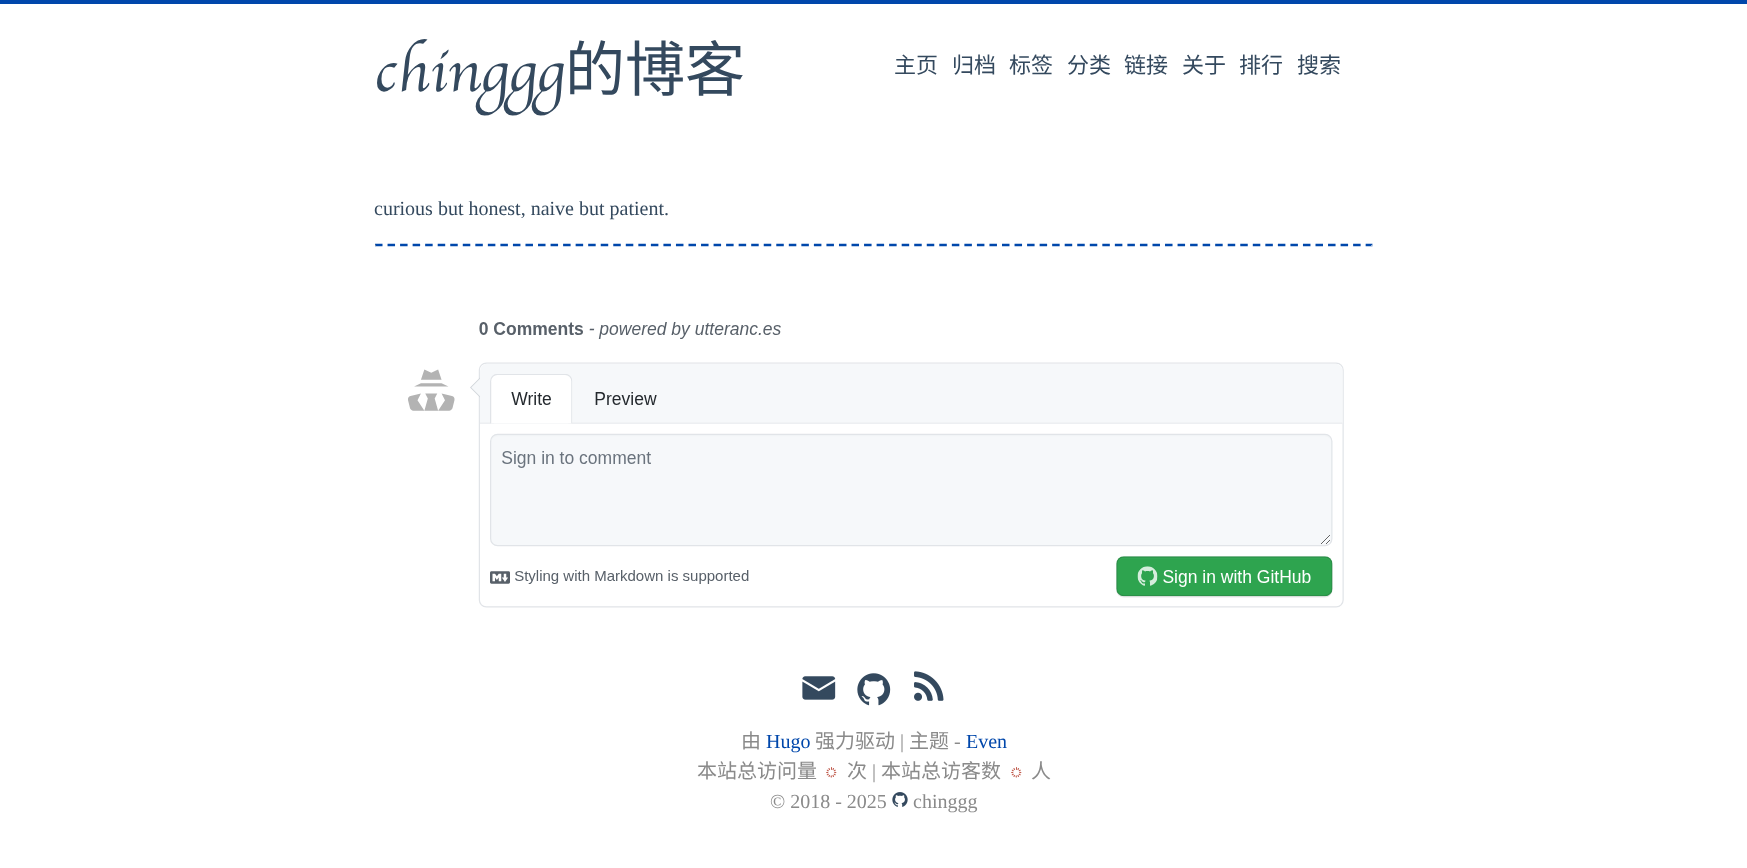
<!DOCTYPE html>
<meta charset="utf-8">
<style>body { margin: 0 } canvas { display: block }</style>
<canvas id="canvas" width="1747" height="868"></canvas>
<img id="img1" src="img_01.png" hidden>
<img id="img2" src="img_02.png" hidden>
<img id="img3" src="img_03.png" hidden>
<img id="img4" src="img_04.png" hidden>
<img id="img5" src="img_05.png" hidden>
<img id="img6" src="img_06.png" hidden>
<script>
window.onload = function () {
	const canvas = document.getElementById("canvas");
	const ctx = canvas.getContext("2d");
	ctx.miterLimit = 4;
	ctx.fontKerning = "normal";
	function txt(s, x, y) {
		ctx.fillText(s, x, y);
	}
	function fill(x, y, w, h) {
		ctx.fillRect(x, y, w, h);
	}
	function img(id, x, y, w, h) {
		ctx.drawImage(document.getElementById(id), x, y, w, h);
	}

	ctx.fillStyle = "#FFFFFF";
	fill(0, 0, 1747, 868);
	ctx.fillStyle = "#0047AB";
	fill(0, 0, 1747, 4);
	ctx.beginPath();
	ctx.moveTo(375, 245);
	ctx.lineTo(1372.5, 245);
	ctx.strokeStyle = "#0047AB";
	ctx.lineWidth = 2.5;
	ctx.setLineDash([7.5, 5.04]);
	ctx.stroke();
	ctx.fillStyle = "#EEEEEE";
	ctx.beginPath();
	ctx.moveTo(1372.5, 244);
	ctx.lineTo(1372.5, 246);
	ctx.lineTo(1371, 246);
	ctx.closePath();
	ctx.fill();
	ctx.fillStyle = "#9F9F9F";
	ctx.beginPath();
	ctx.moveTo(375, 246);
	ctx.lineTo(375, 244);
	ctx.lineTo(376, 246);
	ctx.closePath();
	ctx.fill();
	img("img1", 408, 322, 936, 286);
	img("img2", 802, 676, 34, 24);
	img("img3", 857, 673, 34, 33);
	img("img4", 914, 671, 30, 30);
	img("img5", 826, 767, 11, 11);
	img("img5", 1011, 767, 11, 11);
	img("img6", 892, 792, 16, 15);
	ctx.font = "100 60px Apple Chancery";
	ctx.fillStyle = "#34495E";
	txt("chinggg", 374, 91);
	ctx.font = "60px Noto Sans CJK SC";
	txt("的博客", 565, 91);
	ctx.font = "22px Noto Sans CJK SC";
	txt("主页", 894, 73);
	txt("归档", 952, 73);
	txt("标签", 1009, 73);
	txt("分类", 1067, 73);
	txt("链接", 1124, 73);
	txt("关于", 1182, 73);
	txt("排行", 1239, 73);
	txt("搜索", 1297, 73);
	ctx.font = "20px Liberation Serif";
	txt("curious but honest, naive but patient.", 374, 215);
	ctx.font = "20px Noto Sans CJK SC";
	ctx.fillStyle = "#8A8A8A";
	txt("由", 741, 748);
	ctx.font = "20px Liberation Serif";
	ctx.fillStyle = "#0047AB";
	txt("Hugo", 766, 748);
	ctx.font = "20px Noto Sans CJK SC";
	ctx.fillStyle = "#8A8A8A";
	txt("强力驱动", 815, 748);
	ctx.font = "20px Liberation Serif";
	txt("|", 900, 748);
	ctx.font = "20px Noto Sans CJK SC";
	txt("主题", 909, 748);
	ctx.font = "20px Liberation Serif";
	txt("-", 954, 748);
	ctx.fillStyle = "#0047AB";
	txt("Even", 966, 748);
	ctx.font = "20px Noto Sans CJK SC";
	ctx.fillStyle = "#8A8A8A";
	txt("本站总访问量", 697, 778);
	txt("次", 847, 778);
	ctx.font = "20px Liberation Serif";
	txt("|", 872, 778);
	ctx.font = "20px Noto Sans CJK SC";
	txt("本站总访客数", 881, 778);
	txt("人", 1031, 778);
	ctx.font = "20px Liberation Serif";
	txt("© 2018 - 2025", 770, 808);
	txt("chinggg", 913, 808);
};
</script>
